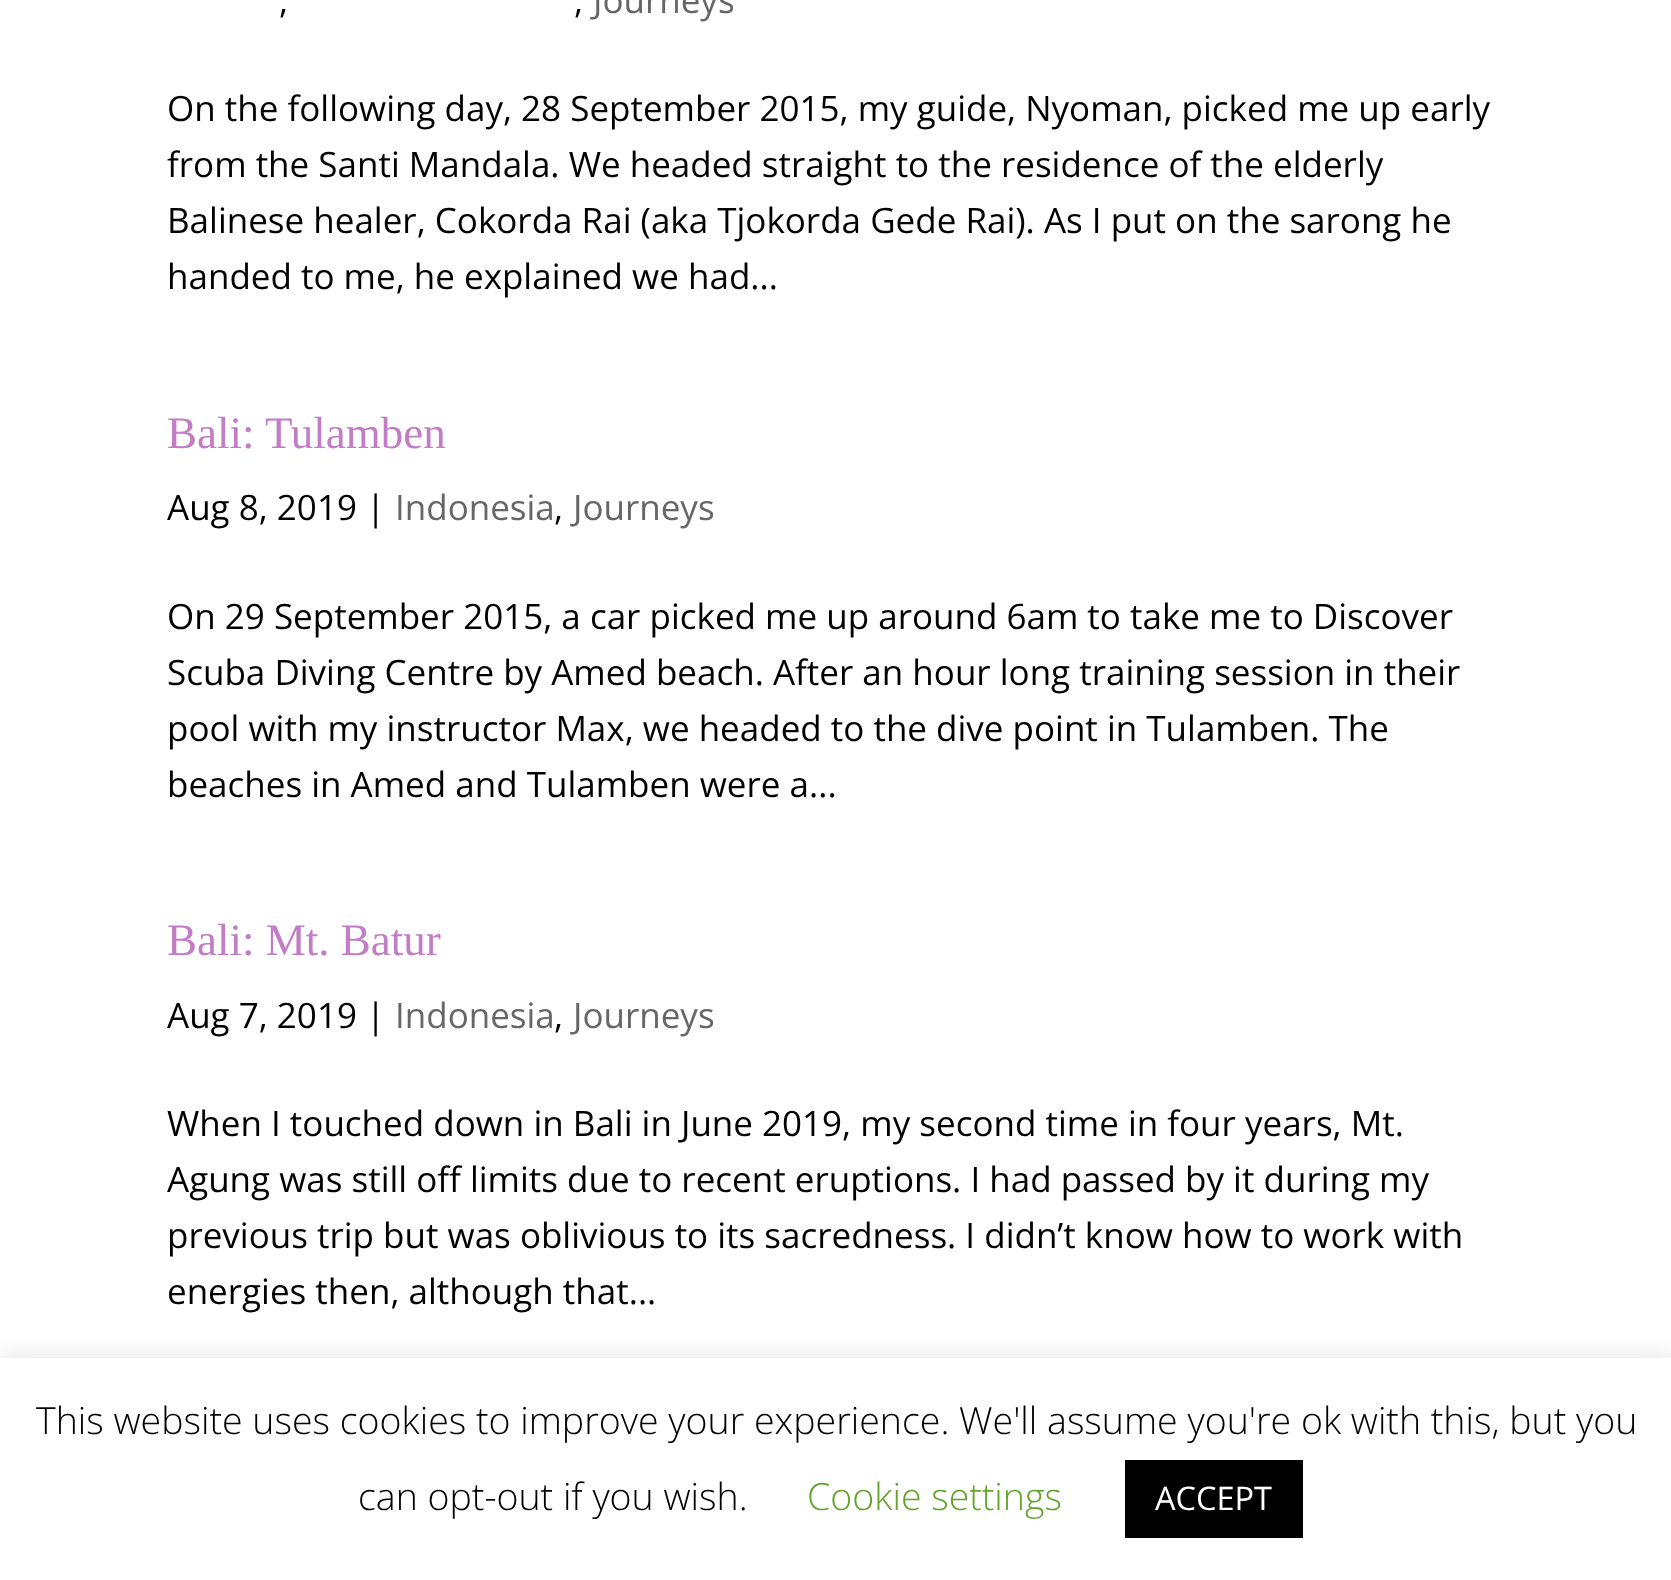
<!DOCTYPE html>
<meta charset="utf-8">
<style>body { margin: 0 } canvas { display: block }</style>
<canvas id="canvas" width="1671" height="1580"></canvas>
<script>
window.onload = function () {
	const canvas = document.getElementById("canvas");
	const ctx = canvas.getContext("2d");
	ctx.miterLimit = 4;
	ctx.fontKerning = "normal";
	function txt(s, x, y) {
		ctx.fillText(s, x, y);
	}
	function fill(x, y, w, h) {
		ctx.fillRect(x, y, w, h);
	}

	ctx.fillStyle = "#FFFFFF";
	fill(0, 0, 1671, 1580);
	ctx.fillStyle = "rgba(172, 171, 171, 0.3)";
	ctx.filter = "blur(12.5px)";
	ctx.beginPath();
	ctx.rect(0, 1355, 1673, 223);
	ctx.fill();
	ctx.filter = "none";
	ctx.fillStyle = "#FFFFFF";
	fill(0, 1358, 1671, 222);
	ctx.fillStyle = "#000000";
	fill(1125, 1460, 178, 78);
	ctx.font = "35px Open Sans";
	txt(",", 279, 13);
	txt(",", 574, 13);
	ctx.fillStyle = "#666666";
	txt("Journeys", 593, 13);
	ctx.fillStyle = "#000000";
	txt("On the following day, 28 September 2015, my guide, Nyoman, picked me up early", 167, 121);
	txt("from the Santi Mandala. We headed straight to the residence of the elderly", 167, 177);
	txt("Balinese healer, Cokorda Rai (aka Tjokorda Gede Rai). As I put on the sarong he", 167, 233);
	txt("handed to me, he explained we had...", 167, 289);
	ctx.font = "45px Liberation Serif";
	ctx.fillStyle = "#C37CC6";
	txt("Bali: Tulamben", 167, 448);
	ctx.font = "35px Open Sans";
	ctx.fillStyle = "#000000";
	txt("Aug 8, 2019 |", 167, 520);
	ctx.fillStyle = "#666666";
	txt("Indonesia", 395, 520);
	ctx.fillStyle = "#000000";
	txt(",", 554, 520);
	ctx.fillStyle = "#666666";
	txt("Journeys", 573, 520);
	ctx.fillStyle = "#000000";
	txt("On 29 September 2015, a car picked me up around 6am to take me to Discover", 167, 629);
	txt("Scuba Diving Centre by Amed beach. After an hour long training session in their", 167, 685);
	txt("pool with my instructor Max, we headed to the dive point in Tulamben. The", 167, 741);
	txt("beaches in Amed and Tulamben were a...", 167, 797);
	ctx.font = "45px Liberation Serif";
	ctx.fillStyle = "#C37CC6";
	txt("Bali: Mt. Batur", 167, 955);
	ctx.font = "35px Open Sans";
	ctx.fillStyle = "#000000";
	txt("Aug 7, 2019 |", 167, 1028);
	ctx.fillStyle = "#666666";
	txt("Indonesia", 395, 1028);
	ctx.fillStyle = "#000000";
	txt(",", 554, 1028);
	ctx.fillStyle = "#666666";
	txt("Journeys", 573, 1028);
	ctx.fillStyle = "#000000";
	txt("When I touched down in Bali in June 2019, my second time in four years, Mt.", 167, 1136);
	txt("Agung was still off limits due to recent eruptions. I had passed by it during my", 167, 1192);
	txt("previous trip but was oblivious to its sacredness. I didn’t know how to work with", 167, 1248);
	txt("energies then, although that...", 167, 1304);
	ctx.font = "300 37.5px Open Sans";
	txt("This website uses cookies to improve your experience. We'll assume you're ok with this, but you", 36, 1434);
	txt("can opt-out if you wish.", 358, 1510);
	ctx.fillStyle = "#62A329";
	txt("Cookie settings", 807, 1510);
	ctx.font = "32.5px Open Sans";
	ctx.fillStyle = "#FFFFFF";
	txt("ACCEPT", 1155, 1510);
};
</script>
